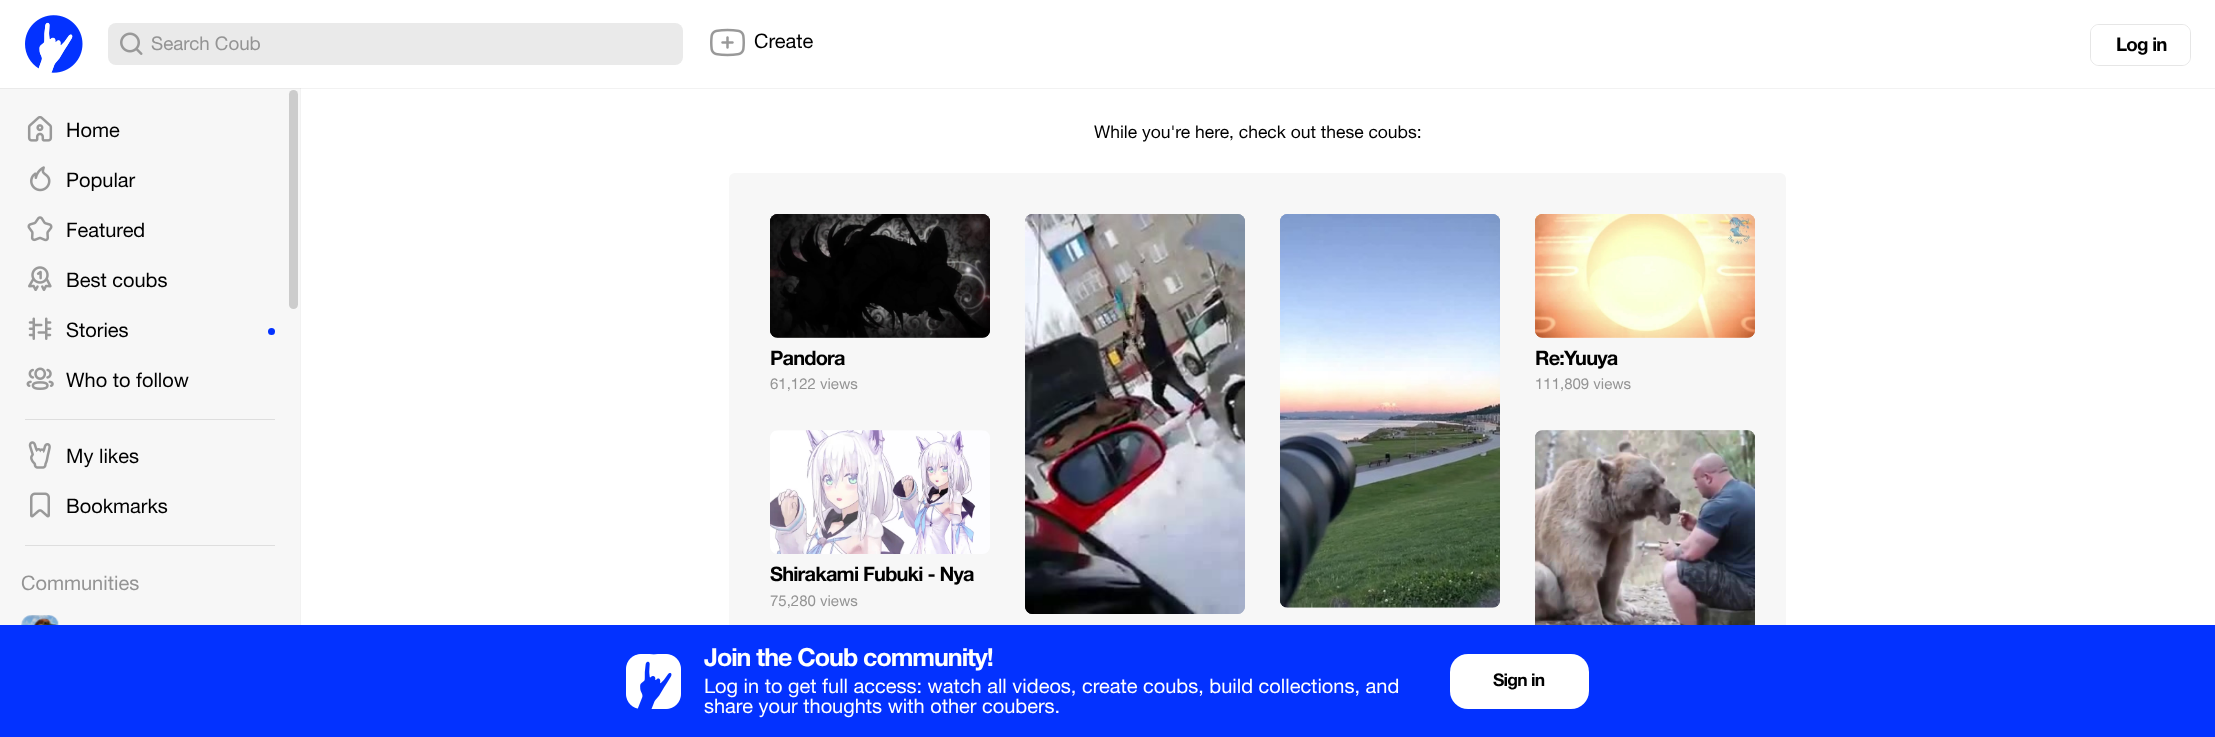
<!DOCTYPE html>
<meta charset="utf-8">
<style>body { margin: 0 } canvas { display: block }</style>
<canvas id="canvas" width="2215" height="737"></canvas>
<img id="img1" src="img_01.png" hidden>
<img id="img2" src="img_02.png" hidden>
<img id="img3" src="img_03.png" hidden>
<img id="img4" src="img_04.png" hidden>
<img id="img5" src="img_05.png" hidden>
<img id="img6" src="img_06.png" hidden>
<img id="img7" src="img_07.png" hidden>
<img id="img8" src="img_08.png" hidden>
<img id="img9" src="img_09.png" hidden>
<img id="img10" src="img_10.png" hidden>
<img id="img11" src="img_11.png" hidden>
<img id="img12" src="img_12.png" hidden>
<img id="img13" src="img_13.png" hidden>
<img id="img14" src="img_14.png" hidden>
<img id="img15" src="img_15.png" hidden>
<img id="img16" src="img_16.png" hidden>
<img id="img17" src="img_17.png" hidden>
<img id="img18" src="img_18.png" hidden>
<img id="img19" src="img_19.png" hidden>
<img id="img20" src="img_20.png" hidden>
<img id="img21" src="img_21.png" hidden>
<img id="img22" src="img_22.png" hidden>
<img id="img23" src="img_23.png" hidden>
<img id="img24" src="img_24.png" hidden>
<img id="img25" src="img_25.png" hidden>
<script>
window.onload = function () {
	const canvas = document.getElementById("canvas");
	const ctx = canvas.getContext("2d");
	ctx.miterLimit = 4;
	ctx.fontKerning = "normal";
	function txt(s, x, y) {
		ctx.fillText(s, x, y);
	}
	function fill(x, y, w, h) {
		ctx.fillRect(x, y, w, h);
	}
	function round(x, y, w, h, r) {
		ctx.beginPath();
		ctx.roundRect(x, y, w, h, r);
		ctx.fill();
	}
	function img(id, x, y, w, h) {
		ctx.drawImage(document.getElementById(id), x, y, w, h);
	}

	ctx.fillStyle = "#FFFFFF";
	fill(0, 0, 2215, 737);
	ctx.strokeStyle = "#F2F2F2";
	ctx.strokeRect(-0.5, -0.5, 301, 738);
	ctx.fillStyle = "#F7F7F7";
	fill(0, 88, 300, 537);
	ctx.fillStyle = "rgba(0, 0, 0, 0.05)";
	fill(0, 88, 2215, 1);
	ctx.fillStyle = "#FFFFFF";
	fill(300, 0, 1, 88);
	img("img1", 25, 15, 58, 58);
	ctx.fillStyle = "#EAEAEA";
	round(108, 23, 575, 42, 8);
	img("img2", 120, 32, 23, 23);
	img("img3", 710, 28, 35, 29);
	ctx.beginPath();
	ctx.roundRect(2090.5, 24.5, 100, 41, 8.5);
	ctx.strokeStyle = "#E6E6E6";
	ctx.stroke();
	ctx.fillStyle = "#FFFFFF";
	round(2091, 25, 99, 40, 8);
	img("img4", 27, 116, 26, 26);
	img("img5", 30, 166, 21, 26);
	img("img6", 27, 216, 26, 26);
	img("img7", 28, 266, 24, 25);
	img("img8", 28, 317, 24, 23);
	ctx.fillStyle = "#0332FF";
	ctx.beginPath();
	ctx.arc(271.5, 331.5, 3.5, 0, Math.PI * 2);
	ctx.fill();
	img("img9", 26, 367, 28, 23);
	ctx.fillStyle = "#DEDEDE";
	fill(25, 419, 250, 1);
	img("img10", 28, 441, 23, 28);
	img("img11", 30, 492, 20, 26);
	fill(25, 545, 250, 1);
	img("img12", 21, 615, 39, 10);
	ctx.fillStyle = "#CCCCCC";
	round(289, 90, 9, 219, 4.5);
	ctx.fillStyle = "#F7F7F7";
	round(729, 173, 1057, 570, 6);
	img("img13", 770, 214, 220, 124);
	img("img14", 770, 214, 220, 124);
	img("img15", 1025, 214, 220, 400);
	img("img16", 1025, 214, 220, 400);
	img("img17", 1280, 214, 220, 394);
	img("img18", 1280, 214, 220, 393);
	img("img19", 1535, 214, 220, 124);
	img("img20", 1535, 214, 220, 124);
	img("img21", 770, 430, 220, 124);
	img("img22", 806, 430, 76, 1);
	img("img23", 1535, 430, 220, 8);
	img("img24", 1535, 430, 220, 195);
	ctx.fillStyle = "#0332FF";
	fill(0, 625, 2215, 112);
	img("img25", 626, 654, 55, 55);
	ctx.fillStyle = "#FFFFFF";
	round(1450, 654, 139, 55, 18);
	ctx.font = "18.75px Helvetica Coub";
	ctx.fillStyle = "#949494";
	txt("Search Coub", 151, 50);
	ctx.font = "20px Helvetica Coub";
	ctx.fillStyle = "#000000";
	txt("Create", 754, 48);
	ctx.letterSpacing = "-0.75px";
	ctx.font = "bold 18.75px Helvetica Coub";
	txt("Log in", 2116, 51);
	ctx.letterSpacing = "0px";
	ctx.font = "20px Helvetica Coub";
	txt("Home", 66, 137);
	txt("Popular", 66, 187);
	txt("Featured", 66, 237);
	txt("Best coubs", 66, 287);
	txt("Stories", 66, 337);
	txt("Who to follow", 66, 387);
	txt("My likes", 66, 463);
	txt("Bookmarks", 66, 513);
	ctx.fillStyle = "#949494";
	txt("Communities", 21, 590);
	ctx.font = "17.5px Helvetica Coub";
	ctx.fillStyle = "#000000";
	txt("While you're here, check out these coubs:", 1094, 138);
	ctx.letterSpacing = "-0.8px";
	ctx.font = "bold 20px Helvetica Coub";
	txt("Pandora", 770, 365);
	ctx.letterSpacing = "0px";
	ctx.font = "15px Helvetica Coub";
	ctx.fillStyle = "#949494";
	txt("61,122 views", 770, 389);
	ctx.letterSpacing = "-0.8px";
	ctx.font = "bold 20px Helvetica Coub";
	ctx.fillStyle = "#000000";
	txt("Re:Yuuya", 1535, 365);
	ctx.letterSpacing = "0px";
	ctx.font = "15px Helvetica Coub";
	ctx.fillStyle = "#949494";
	txt("111,809 views", 1535, 389);
	ctx.letterSpacing = "-0.8px";
	ctx.font = "bold 20px Helvetica Coub";
	ctx.fillStyle = "#000000";
	txt("Shirakami Fubuki - Nya", 770, 581);
	ctx.letterSpacing = "0px";
	ctx.font = "15px Helvetica Coub";
	ctx.fillStyle = "#949494";
	txt("75,280 views", 770, 606);
	ctx.letterSpacing = "-1px";
	ctx.font = "bold 25px Helvetica Coub";
	ctx.fillStyle = "#FFFFFF";
	txt("Join the Coub community!", 704, 666);
	ctx.letterSpacing = "0px";
	ctx.font = "20px Helvetica Coub";
	txt("Log in to get full access: watch all videos, create coubs, build collections, and", 704, 693);
	txt("share your thoughts with other coubers.", 704, 713);
	ctx.letterSpacing = "-0.75px";
	ctx.font = "bold 17.5px Helvetica Coub";
	ctx.fillStyle = "#000000";
	txt("Sign in", 1493, 686);
};
</script>
